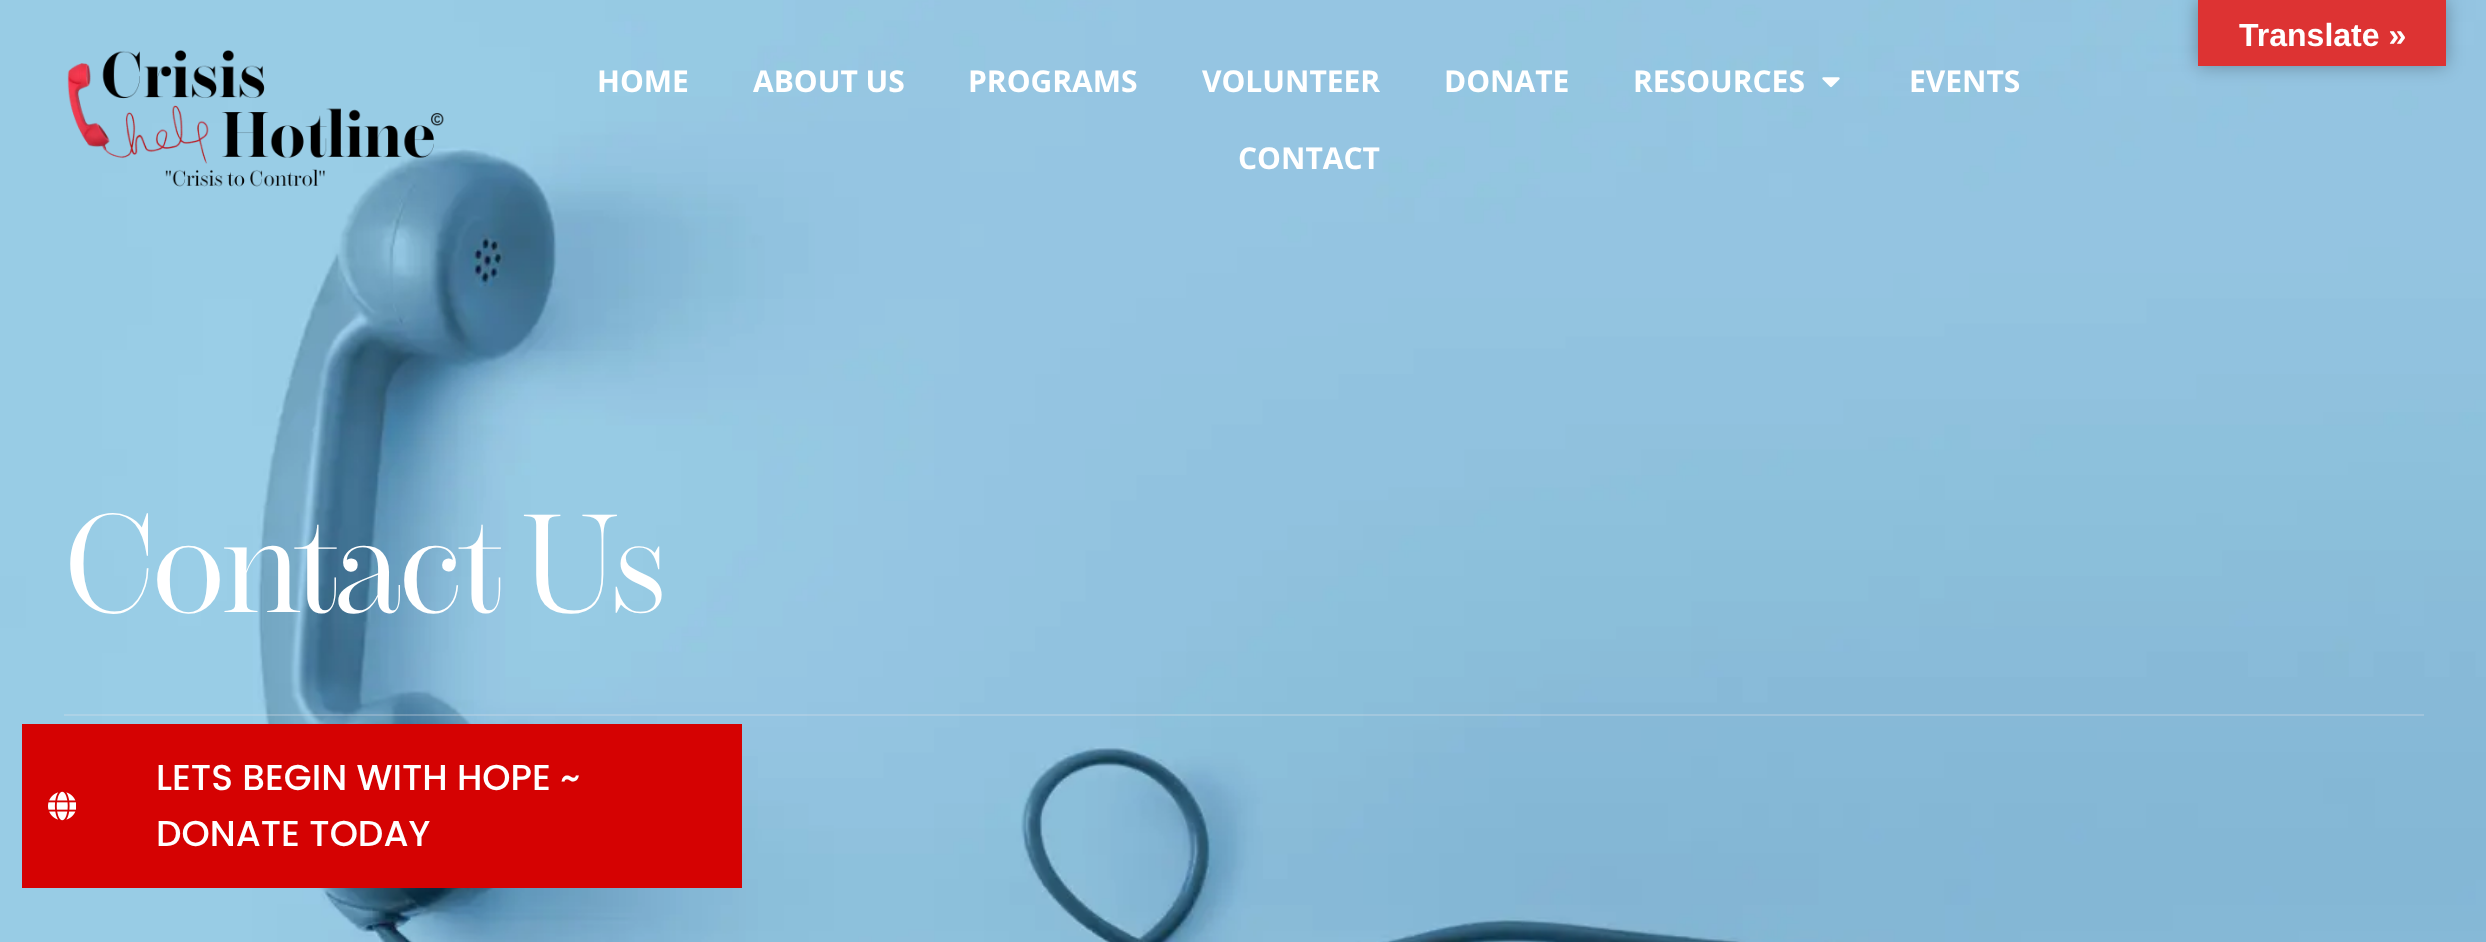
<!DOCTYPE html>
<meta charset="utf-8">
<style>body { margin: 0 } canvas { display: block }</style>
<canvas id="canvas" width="2486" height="942"></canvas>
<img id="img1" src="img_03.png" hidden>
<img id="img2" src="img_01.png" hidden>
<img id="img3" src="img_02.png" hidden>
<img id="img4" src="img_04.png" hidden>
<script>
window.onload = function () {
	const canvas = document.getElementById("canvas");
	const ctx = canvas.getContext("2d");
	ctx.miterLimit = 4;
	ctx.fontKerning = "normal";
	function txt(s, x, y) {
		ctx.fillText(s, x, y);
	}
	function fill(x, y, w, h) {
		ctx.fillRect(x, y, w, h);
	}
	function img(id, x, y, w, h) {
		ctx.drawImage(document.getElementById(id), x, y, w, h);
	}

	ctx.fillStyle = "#FFFFFF";
	fill(0, 0, 2486, 942);
	img("img1", 0, 0, 2486, 942);
	ctx.fillStyle = "rgba(0, 0, 0, 0.3)";
	ctx.filter = "blur(9px)";
	ctx.beginPath();
	ctx.rect(2198, 0, 248, 66);
	ctx.fill();
	ctx.filter = "none";
	ctx.fillStyle = "#DD3333";
	fill(2198, 0, 248, 66);
	img("img2", 67, 50, 377, 137);
	img("img3", 1822, 77, 18, 11);
	ctx.fillStyle = "rgba(227, 226, 232, 0.28)";
	fill(64, 714, 2360, 2);
	ctx.fillStyle = "#D50202";
	fill(22, 724, 720, 164);
	img("img4", 48, 791, 28, 30);
	ctx.font = "bold 32px Liberation Sans";
	ctx.fillStyle = "#FFFFFF";
	txt("Translate »", 2239, 46);
	ctx.font = "bold 30px Open Sans";
	txt("HOME", 597, 92);
	txt("ABOUT US", 753, 92);
	txt("PROGRAMS", 968, 92);
	txt("VOLUNTEER", 1202, 92);
	txt("DONATE", 1444, 92);
	txt("RESOURCES", 1633, 92);
	txt("EVENTS", 1909, 92);
	txt("CONTACT", 1238, 169);
	ctx.letterSpacing = "-4px";
	ctx.font = "140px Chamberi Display";
	txt("Contact Us", 63, 612);
	ctx.letterSpacing = "0px";
	ctx.font = "500 36px Poppins";
	txt("LETS BEGIN WITH HOPE ~", 156, 790);
	txt("DONATE TODAY", 156, 846);
};
</script>
